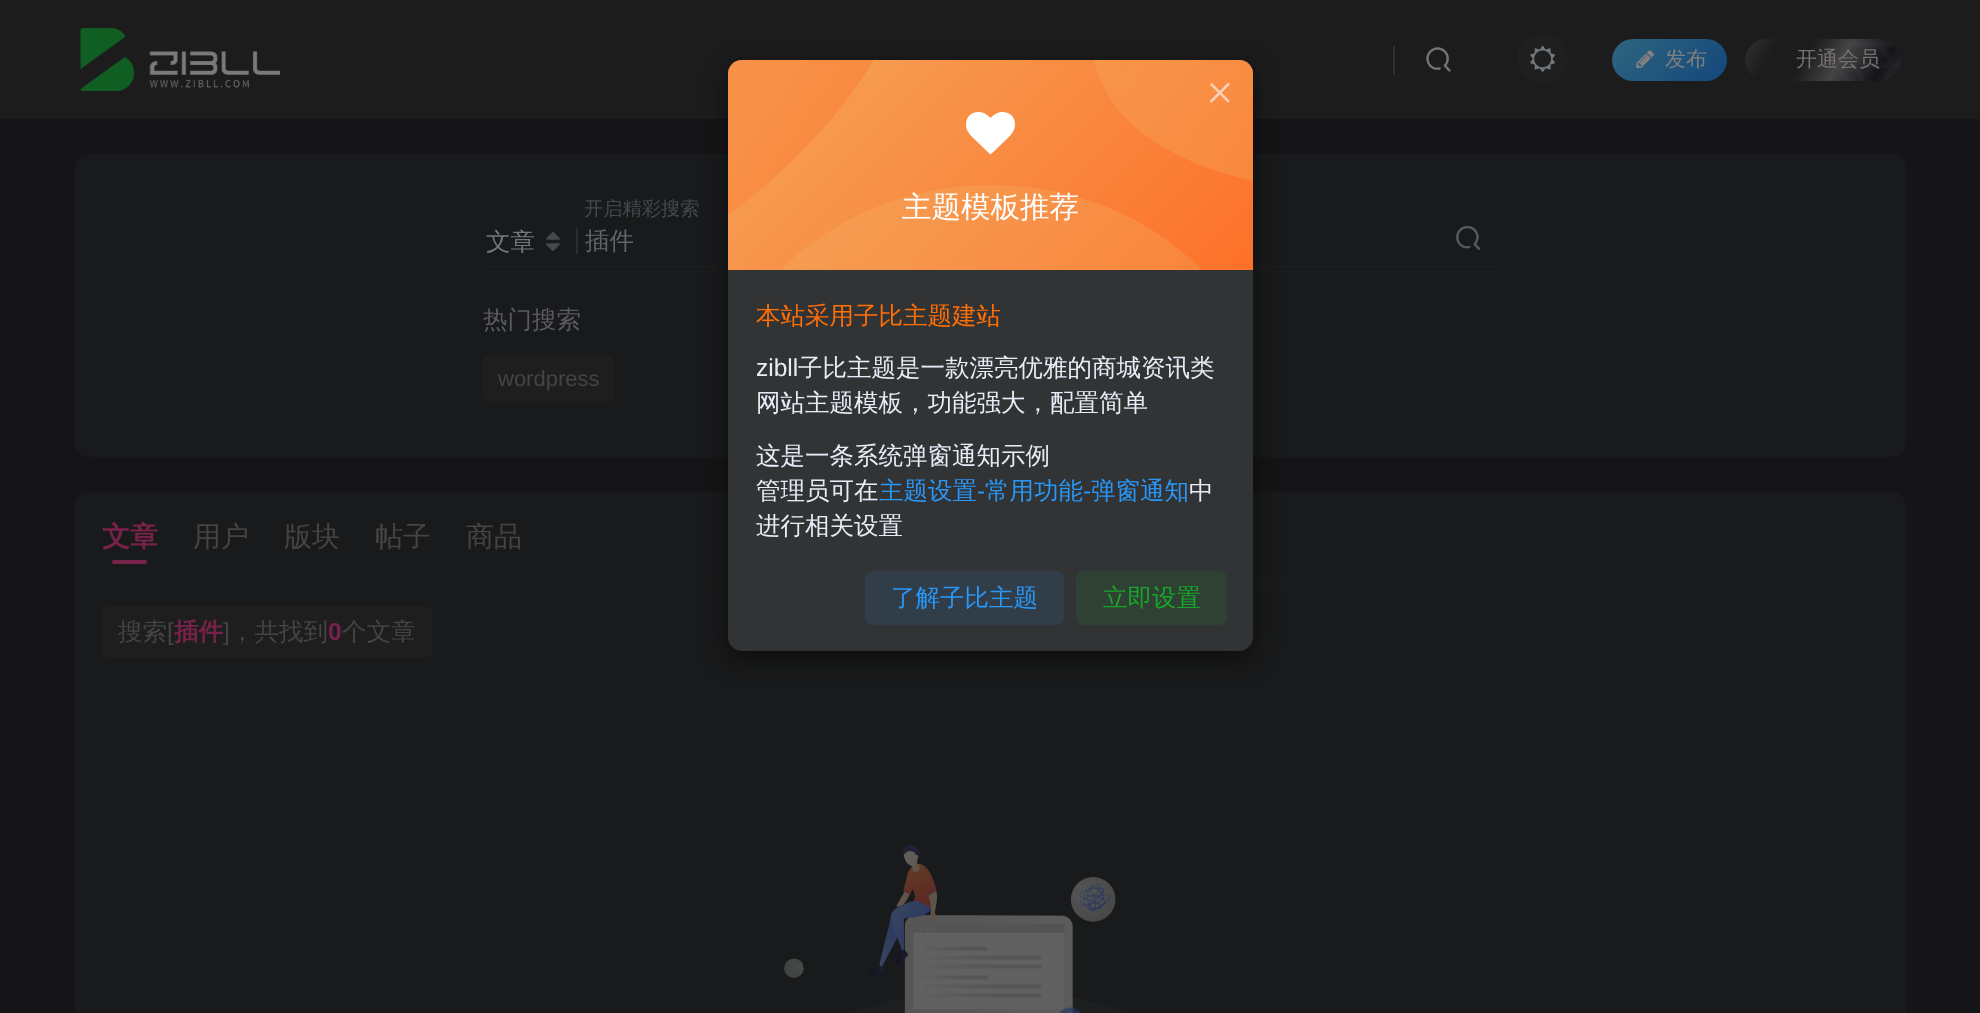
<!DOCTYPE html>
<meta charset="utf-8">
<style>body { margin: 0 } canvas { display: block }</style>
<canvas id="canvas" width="1980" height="1013"></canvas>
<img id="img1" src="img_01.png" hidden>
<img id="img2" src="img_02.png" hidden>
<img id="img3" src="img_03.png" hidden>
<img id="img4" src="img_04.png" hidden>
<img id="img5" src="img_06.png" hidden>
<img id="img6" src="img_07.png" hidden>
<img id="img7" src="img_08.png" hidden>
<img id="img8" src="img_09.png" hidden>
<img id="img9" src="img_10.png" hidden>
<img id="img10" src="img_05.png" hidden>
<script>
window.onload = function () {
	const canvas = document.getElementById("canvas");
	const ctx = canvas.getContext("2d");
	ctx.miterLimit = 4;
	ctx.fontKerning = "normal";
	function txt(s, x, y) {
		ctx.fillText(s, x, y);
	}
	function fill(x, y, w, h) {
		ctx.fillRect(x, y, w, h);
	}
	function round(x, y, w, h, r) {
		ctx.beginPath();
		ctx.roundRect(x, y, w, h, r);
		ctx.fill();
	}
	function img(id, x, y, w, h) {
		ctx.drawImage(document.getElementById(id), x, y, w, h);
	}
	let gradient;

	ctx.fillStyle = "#151517";
	fill(0, 0, 1980, 1013);
	ctx.fillStyle = "#1C1C1D";
	fill(0, 0, 1980, 119);
	img("img1", 80, 28, 200, 63);
	ctx.fillStyle = "#2D2E30";
	fill(1393, 46, 2, 29);
	img("img2", 1426, 47, 25, 25);
	ctx.fillStyle = "#1F1F20";
	ctx.beginPath();
	ctx.arc(1542.5, 58.5, 25.5, 0, Math.PI * 2);
	ctx.fill();
	img("img3", 1530, 45, 26, 27);
	gradient = ctx.createLinearGradient(1630, 20, 1709, 99);
	gradient.addColorStop(0.1, "#2D627E");
	gradient.addColorStop(1, "#13477C");
	ctx.fillStyle = gradient;
	round(1612, 39, 115, 42, 21);
	img("img4", 1636, 50, 18, 18);
	gradient = ctx.createLinearGradient(1890, 98, 1755, 21);
	gradient.addColorStop(0, "#262729");
	gradient.addColorStop(0.15, "#151519");
	gradient.addColorStop(0.4, "#434345");
	gradient.addColorStop(0.6, "#1D1D1E");
	gradient.addColorStop(0.8, "#1D1C1C");
	gradient.addColorStop(1, "#2F3031");
	ctx.fillStyle = gradient;
	round(1745, 39, 156, 42, 21);
	ctx.fillStyle = "#191A1B";
	round(75, 154, 1831, 303, 14);
	img("img5", 546, 232, 14, 19);
	ctx.fillStyle = "#2B2C2E";
	fill(576, 228, 2, 26);
	img("img6", 1456, 226, 25, 24);
	ctx.fillStyle = "#1C1D1E";
	fill(483, 266, 1015, 2);
	ctx.fillStyle = "#1E1E1F";
	round(483, 355, 131, 48, 7);
	ctx.fillStyle = "#191A1B";
	round(75, 492, 1831, 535, 14);
	ctx.fillStyle = "#1C1D1E";
	fill(84, 583, 1778, 2);
	ctx.fillStyle = "#78224A";
	round(112, 560, 35, 4, 2);
	ctx.fillStyle = "#1E1E1F";
	round(102, 606, 330, 52, 7);
	img("img7", 784, 845, 345, 168);
	ctx.fillStyle = "rgba(0, 0, 0, 0.5)";
	ctx.filter = "blur(13px)";
	ctx.beginPath();
	ctx.roundRect(728, 68, 525, 592, 14);
	ctx.fill();
	ctx.filter = "none";
	ctx.fillStyle = "#323335";
	round(728, 60, 525, 591, 14);
	gradient = ctx.createLinearGradient(833, -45, 1253, 375);
	gradient.addColorStop(0.1, "#F59F54");
	gradient.addColorStop(1, "#FF6922");
	ctx.fillStyle = gradient;
	ctx.beginPath();
	ctx.roundRect(728, 60, 525, 210, [14, 14, 0, 0]);
	ctx.fill();
	gradient = ctx.createLinearGradient(723, 171, 1260, 707);
	gradient.addColorStop(0.1, "#F59F54");
	gradient.addColorStop(1, "#FF6922");
	ctx.fillStyle = gradient;
	ctx.beginPath();
	ctx.moveTo(992, 185);
	ctx.bezierCurveTo(1075, 185, 1151, 218, 1202, 270);
	ctx.lineTo(781, 270);
	ctx.bezierCurveTo(832, 218, 908, 185, 992, 185);
	ctx.closePath();
	ctx.fill();
	gradient = ctx.createLinearGradient(227, 2.5, 975, 148);
	gradient.addColorStop(0.1, "rgba(245, 159, 84, 0.4)");
	gradient.addColorStop(1, "rgba(255, 105, 34, 0.4)");
	ctx.fillStyle = gradient;
	ctx.beginPath();
	ctx.moveTo(742, 60);
	ctx.lineTo(874, 60);
	ctx.bezierCurveTo(842, 113, 792, 168, 728, 215);
	ctx.lineTo(728, 74);
	ctx.bezierCurveTo(728, 66, 734, 60, 742, 60);
	ctx.closePath();
	ctx.fill();
	gradient = ctx.createLinearGradient(1114, -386, 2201, 144);
	gradient.addColorStop(0.1, "rgba(245, 159, 84, 0.6)");
	gradient.addColorStop(1, "rgba(255, 105, 34, 0.6)");
	ctx.fillStyle = gradient;
	ctx.beginPath();
	ctx.moveTo(1253, 181);
	ctx.bezierCurveTo(1187, 166, 1110, 132, 1094, 60);
	ctx.lineTo(1239, 60);
	ctx.bezierCurveTo(1247, 60, 1253, 66, 1253, 74);
	ctx.closePath();
	ctx.fill();
	img("img8", 1209, 82, 21, 21);
	img("img9", 966, 112, 49, 42);
	ctx.fillStyle = "#313D48";
	round(865, 571, 199, 54, 7);
	ctx.fillStyle = "#2F4034";
	round(1076, 571, 151, 54, 7);
	ctx.font = "500 21px WenQuanYi Zen Hei";
	ctx.fillStyle = "#808080";
	txt("发布", 1665, 66);
	ctx.fillStyle = "#767070";
	txt("开通会员", 1796, 66);
	img("img10", 1832, 42, 69, 39);
	ctx.font = "500 24.5px WenQuanYi Zen Hei";
	ctx.fillStyle = "#73777C";
	txt("文章", 486, 250);
	ctx.font = "500 19.25px WenQuanYi Zen Hei";
	ctx.fillStyle = "#46494B";
	txt("开启精彩搜索", 584, 215);
	ctx.font = "500 24.5px WenQuanYi Zen Hei";
	ctx.fillStyle = "#616568";
	txt("插件", 585, 249);
	ctx.fillStyle = "#5A5B5E";
	txt("热门搜索", 483, 328);
	ctx.font = "22px Liberation Sans";
	ctx.fillStyle = "#444444";
	txt("wordpress", 498, 386);
	ctx.font = "bold 28px WenQuanYi Zen Hei";
	ctx.fillStyle = "#78224A";
	txt("文章", 102, 546);
	ctx.font = "500 28px WenQuanYi Zen Hei";
	ctx.fillStyle = "#444444";
	txt("用户", 193, 546);
	txt("版块", 284, 546);
	txt("帖子", 375, 546);
	txt("商品", 466, 546);
	ctx.font = "500 24.5px WenQuanYi Zen Hei";
	txt("搜索", 118, 640);
	ctx.font = "24.5px Liberation Sans";
	txt("[", 167, 640);
	ctx.font = "bold 24.5px WenQuanYi Zen Hei";
	ctx.fillStyle = "#78224A";
	txt("插件", 174, 640);
	ctx.font = "24.5px Liberation Sans";
	ctx.fillStyle = "#444444";
	txt("]", 223, 640);
	ctx.font = "500 24.5px WenQuanYi Zen Hei";
	txt("，共找到", 230, 640);
	ctx.font = "bold 24.5px Liberation Sans";
	ctx.fillStyle = "#78224A";
	txt("0", 328, 640);
	ctx.font = "500 24.5px WenQuanYi Zen Hei";
	ctx.fillStyle = "#444444";
	txt("个文章", 342, 640);
	ctx.font = "500 29.5px WenQuanYi Zen Hei";
	ctx.fillStyle = "#FFFFFF";
	txt("主题模板推荐", 902, 217);
	ctx.font = "500 24.5px WenQuanYi Zen Hei";
	ctx.fillStyle = "#FF6F06";
	txt("本站采用子比主题建站", 756, 324);
	ctx.font = "24.5px Liberation Sans";
	ctx.fillStyle = "#E5EEF7";
	txt("zibll", 756, 376);
	ctx.font = "500 24.5px WenQuanYi Zen Hei";
	txt("子比主题是一款漂亮优雅的商城资讯类", 798, 376);
	txt("网站主题模板，功能强大，配置简单", 756, 411);
	txt("这是一条系统弹窗通知示例", 756, 464);
	txt("管理员可在", 756, 499);
	ctx.fillStyle = "#2997F7";
	txt("主题设置", 879, 499);
	ctx.font = "24.5px Liberation Sans";
	txt("-", 977, 499);
	ctx.font = "500 24.5px WenQuanYi Zen Hei";
	txt("常用功能", 985, 499);
	ctx.font = "24.5px Liberation Sans";
	txt("-", 1083, 499);
	ctx.font = "500 24.5px WenQuanYi Zen Hei";
	txt("弹窗通知", 1091, 499);
	ctx.fillStyle = "#E5EEF7";
	txt("中", 1189, 499);
	txt("进行相关设置", 756, 534);
	ctx.fillStyle = "#2997F7";
	txt("了解子比主题", 891, 606);
	ctx.fillStyle = "#18A52A";
	txt("立即设置", 1103, 606);
};
</script>
